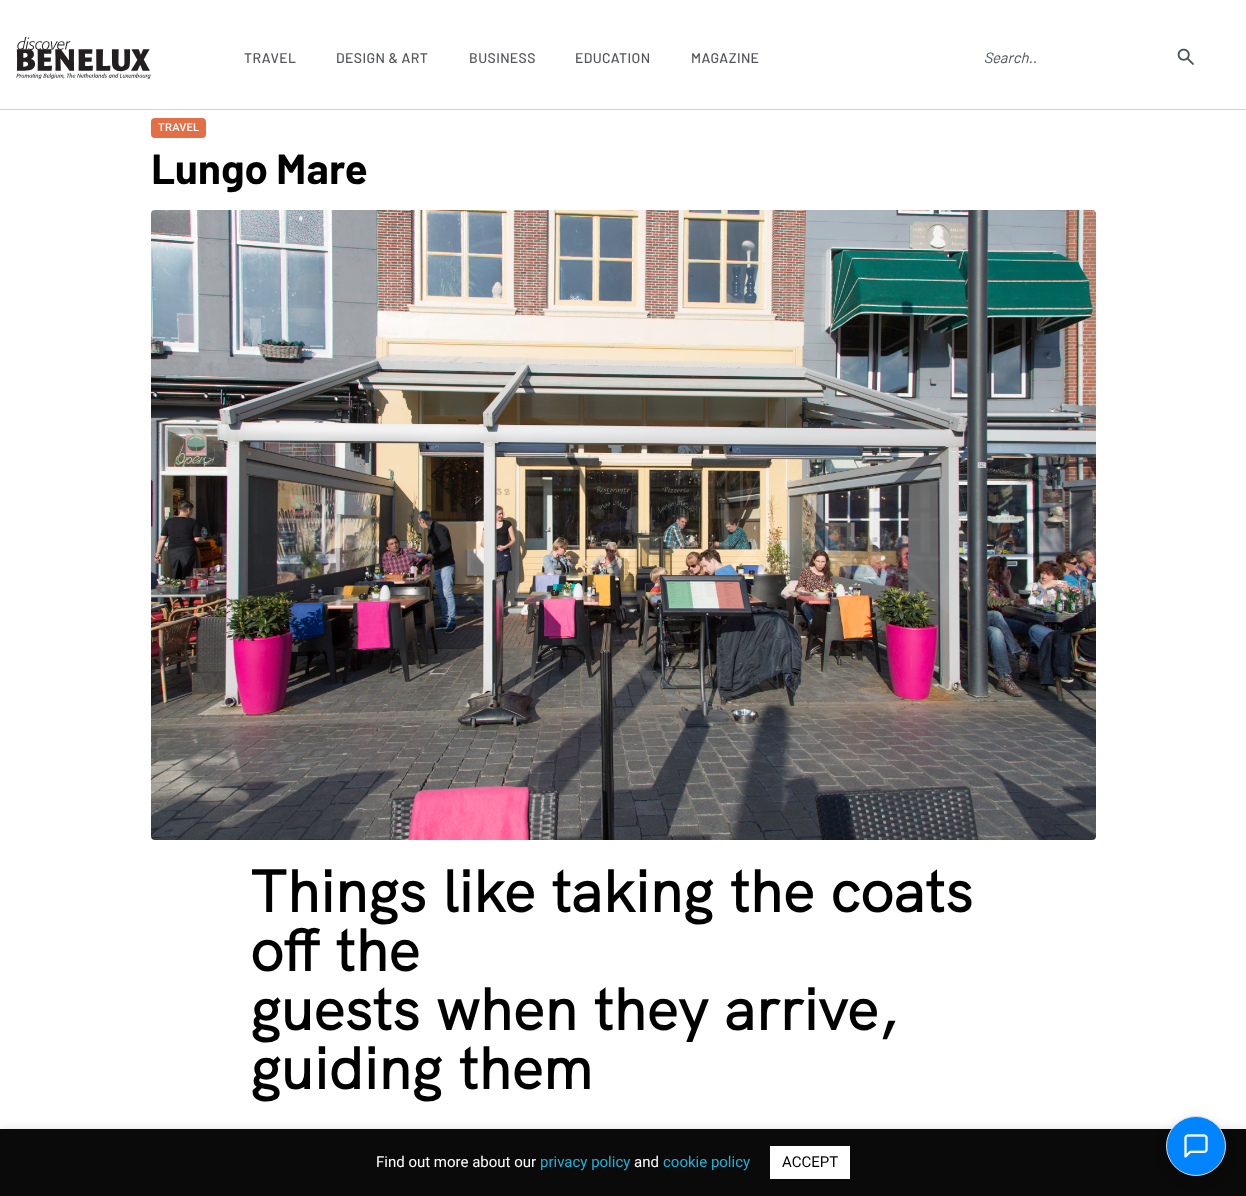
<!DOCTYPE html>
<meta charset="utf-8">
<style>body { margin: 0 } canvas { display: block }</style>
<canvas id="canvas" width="1246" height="1196"></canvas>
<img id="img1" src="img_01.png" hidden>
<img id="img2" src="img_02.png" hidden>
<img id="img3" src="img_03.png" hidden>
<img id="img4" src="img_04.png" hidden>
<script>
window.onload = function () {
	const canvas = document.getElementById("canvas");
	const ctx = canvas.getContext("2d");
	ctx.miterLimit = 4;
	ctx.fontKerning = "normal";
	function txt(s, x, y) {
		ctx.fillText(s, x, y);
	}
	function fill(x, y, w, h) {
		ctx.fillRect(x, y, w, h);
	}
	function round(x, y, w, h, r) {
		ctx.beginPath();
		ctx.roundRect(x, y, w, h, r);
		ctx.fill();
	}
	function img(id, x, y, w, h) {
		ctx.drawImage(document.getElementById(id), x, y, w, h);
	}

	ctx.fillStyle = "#FFFFFF";
	fill(0, 0, 1246, 1196);
	ctx.fillStyle = "#D1D3DE";
	fill(0, 109, 1246, 1);
	img("img1", 16, 36, 135, 43);
	img("img2", 1177, 48, 17, 17);
	ctx.fillStyle = "#E46F46";
	round(151, 118, 55, 20, 4);
	img("img3", 151, 210, 945, 630);
	ctx.fillStyle = "rgba(172, 171, 171, 0.3)";
	ctx.filter = "blur(5px)";
	ctx.beginPath();
	ctx.rect(0, 1128, 1246, 67);
	ctx.fill();
	ctx.filter = "none";
	ctx.fillStyle = "#0A0A0A";
	fill(0, 1129, 1246, 67);
	ctx.fillStyle = "#FFFFFF";
	fill(770, 1146, 80, 33);
	ctx.fillStyle = "rgba(0, 0, 0, 0.15)";
	ctx.filter = "blur(6px)";
	ctx.beginPath();
	ctx.roundRect(1166, 1120, 60, 60, 30);
	ctx.fill();
	ctx.filter = "none";
	ctx.fillStyle = "#0084FF";
	ctx.beginPath();
	ctx.arc(1196, 1146, 29.5, 0, Math.PI * 2);
	ctx.fill();
	ctx.strokeStyle = "#DADCE0";
	ctx.stroke();
	img("img4", 1184, 1134, 24, 24);
	ctx.letterSpacing = "0.4px";
	ctx.font = "500 14px Barlow";
	ctx.fillStyle = "#54565B";
	txt("TRAVEL", 244, 63);
	txt("DESIGN & ART", 336, 63);
	txt("BUSINESS", 469, 63);
	txt("EDUCATION", 575, 63);
	txt("MAGAZINE", 691, 63);
	ctx.letterSpacing = "0px";
	ctx.font = "italic 15px Barlow";
	ctx.fillStyle = "#4A505C";
	txt("Search..", 984, 63);
	ctx.letterSpacing = "0.25px";
	ctx.font = "500 11px Roboto";
	ctx.fillStyle = "#FFFFFF";
	txt("TRAVEL", 158, 131);
	ctx.letterSpacing = "0px";
	ctx.font = "bold 42px Barlow";
	ctx.fillStyle = "#000000";
	txt("Lungo Mare", 151, 184);
	ctx.font = "bold 59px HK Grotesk";
	txt("Things like taking the coats", 250, 912);
	txt("off the", 250, 971);
	txt("guests when they arrive,", 250, 1030);
	txt("guiding them", 250, 1089);
	ctx.font = "15px Roboto";
	ctx.fillStyle = "#FFFFFF";
	txt("Find out more about our", 376, 1167);
	ctx.fillStyle = "#20B1D9";
	txt("privacy policy", 540, 1167);
	ctx.fillStyle = "#FFFFFF";
	txt("and", 634, 1167);
	ctx.fillStyle = "#20B1D9";
	txt("cookie policy", 663, 1167);
	ctx.fillStyle = "#000000";
	txt("ACCEPT", 782, 1167);
};
</script>
